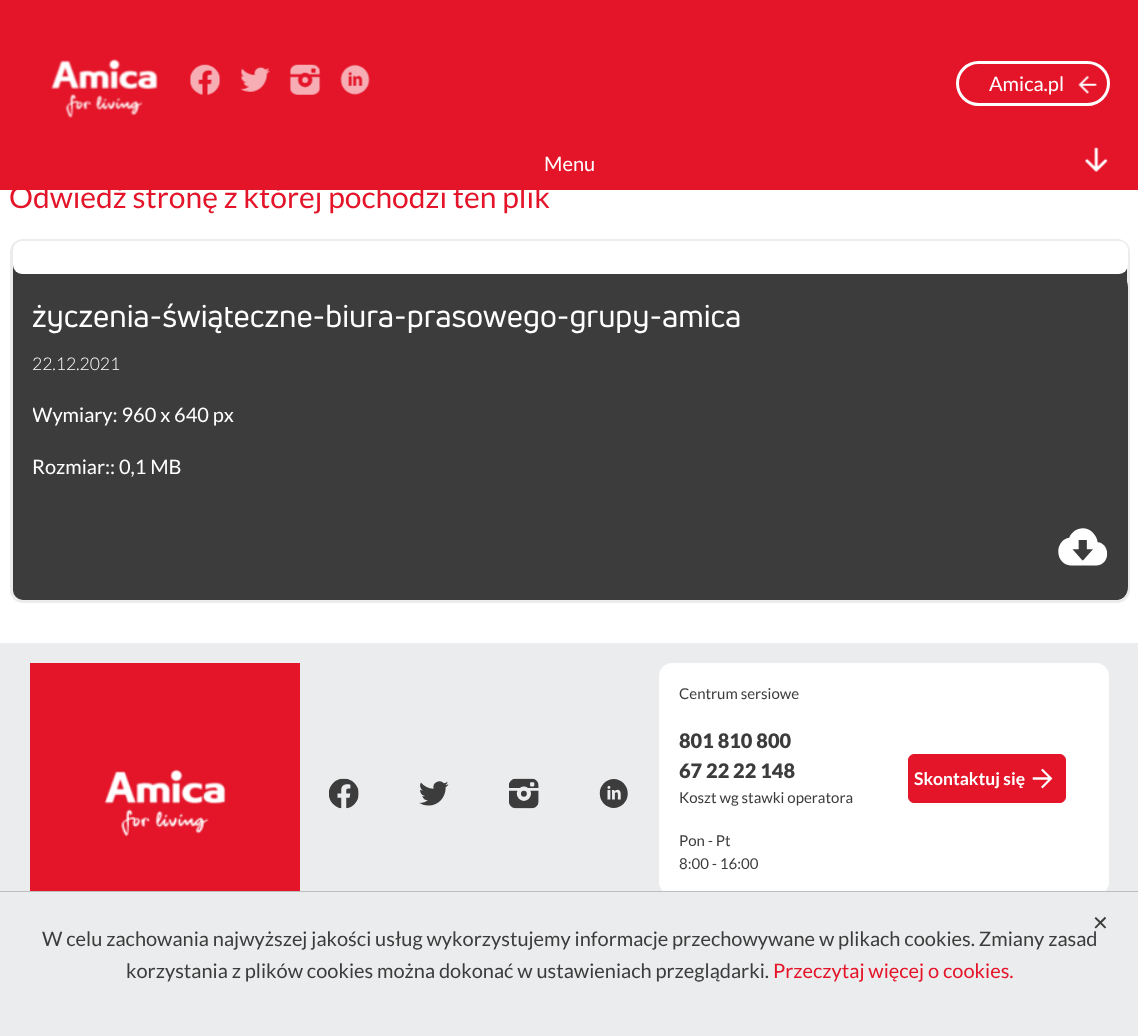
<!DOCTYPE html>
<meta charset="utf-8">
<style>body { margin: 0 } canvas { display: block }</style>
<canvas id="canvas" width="1138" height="1036"></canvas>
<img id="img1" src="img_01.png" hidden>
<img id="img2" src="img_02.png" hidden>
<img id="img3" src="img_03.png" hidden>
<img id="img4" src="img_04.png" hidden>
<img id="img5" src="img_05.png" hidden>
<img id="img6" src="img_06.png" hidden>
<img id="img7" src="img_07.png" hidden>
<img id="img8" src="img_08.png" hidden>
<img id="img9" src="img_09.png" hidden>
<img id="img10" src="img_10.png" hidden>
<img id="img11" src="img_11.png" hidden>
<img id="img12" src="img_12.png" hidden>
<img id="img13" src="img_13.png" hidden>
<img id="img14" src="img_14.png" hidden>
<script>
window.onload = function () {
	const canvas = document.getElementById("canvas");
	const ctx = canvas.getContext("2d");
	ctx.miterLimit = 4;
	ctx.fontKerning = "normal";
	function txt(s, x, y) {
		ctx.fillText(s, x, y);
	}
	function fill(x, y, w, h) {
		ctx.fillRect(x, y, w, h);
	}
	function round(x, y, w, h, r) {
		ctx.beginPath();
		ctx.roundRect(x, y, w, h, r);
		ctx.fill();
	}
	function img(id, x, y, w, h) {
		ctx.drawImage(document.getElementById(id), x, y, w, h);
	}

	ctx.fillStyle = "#FFFFFF";
	fill(0, 0, 1138, 1036);
	ctx.fillStyle = "#E41429";
	fill(0, 0, 1138, 190);
	img("img1", 50, 59, 108, 59);
	img("img2", 189, 64, 32, 31);
	img("img3", 240, 66, 30, 26);
	img("img4", 289, 64, 32, 31);
	img("img5", 340, 64, 30, 31);
	ctx.beginPath();
	ctx.roundRect(957.5, 62.5, 151, 42, 21);
	ctx.strokeStyle = "#FFFFFF";
	ctx.lineWidth = 3;
	ctx.stroke();
	img("img6", 1078, 75, 19, 19);
	img("img7", 1085, 147, 23, 25);
	ctx.fillStyle = "#3C3C3C";
	ctx.beginPath();
	ctx.roundRect(11.5, 240.5, 1117, 361, 11.5);
	ctx.fill();
	ctx.strokeStyle = "#EBECED";
	ctx.stroke();
	ctx.fillStyle = "#FFFFFF";
	round(13, 241, 1115, 33, 9);
	ctx.fillStyle = "#3C3C3C";
	round(13, 274, 1115, 326, 13);
	img("img8", 1058, 528, 50, 38);
	ctx.fillStyle = "#EBECED";
	fill(0, 643, 1138, 248);
	ctx.fillStyle = "#E41429";
	fill(30, 663, 270, 228);
	img("img9", 104, 769, 122, 68);
	img("img10", 329, 778, 30, 31);
	img("img11", 419, 781, 30, 25);
	img("img12", 509, 778, 30, 31);
	img("img13", 599, 779, 29, 29);
	ctx.fillStyle = "#FFFFFF";
	round(659, 663, 450, 232, 13);
	ctx.fillStyle = "#E41429";
	ctx.beginPath();
	ctx.roundRect(908.5, 754.5, 157, 48, 5.5);
	ctx.fill();
	ctx.strokeStyle = "#E41429";
	ctx.lineWidth = 1;
	ctx.stroke();
	img("img14", 1032, 768, 21, 21);
	ctx.fillStyle = "#EBECED";
	fill(0, 892, 1138, 144);
	ctx.fillStyle = "#BDBDBD";
	fill(0, 891, 1138, 1);
	ctx.font = "20px Lato";
	ctx.fillStyle = "#FFFFFF";
	txt("Amica.pl", 989, 91);
	txt("Menu", 544, 171);
	ctx.font = "30px Lato";
	ctx.fillStyle = "#E41429";
	txt("Odwiedź stronę z której pochodzi ten plik", 9, 208);
	ctx.font = "31.25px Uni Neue";
	ctx.fillStyle = "#FFFFFF";
	txt("życzenia-świąteczne-biura-prasowego-grupy-amica", 32, 327);
	ctx.font = "300 17.5px Lato";
	txt("22.12.2021", 32, 370);
	ctx.save();
	ctx.beginPath();
	ctx.rect(33, 294, 1075, 209);
	ctx.clip();
	ctx.font = "20px Lato";
	txt("Wymiary: 960 x 640 px", 32, 422);
	ctx.restore();
	ctx.font = "20px Lato";
	txt("Rozmiar:: 0,1 MB", 32, 474);
	ctx.font = "15px Lato";
	ctx.fillStyle = "#3C3C3C";
	txt("Centrum sersiowe", 679, 699);
	ctx.font = "900 20px Lato";
	txt("801 810 800", 679, 748);
	txt("67 22 22 148", 679, 778);
	ctx.font = "15px Lato";
	txt("Koszt wg stawki operatora", 679, 803);
	txt("Pon - Pt", 679, 846);
	txt("8:00 - 16:00", 679, 869);
	ctx.font = "bold 17.5px Lato";
	ctx.fillStyle = "#FFFFFF";
	txt("Skontaktuj się", 914, 785);
	ctx.font = "20px DejaVu Sans";
	ctx.fillStyle = "#3C3C3C";
	txt("✕", 1092, 930);
	ctx.font = "20px Lato";
	txt("W celu zachowania najwyższej jakości usług wykorzystujemy informacje przechowywane w plikach cookies. Zmiany zasad", 42, 946);
	txt("korzystania z plików cookies można dokonać w ustawieniach przeglądarki.", 126, 978);
	ctx.fillStyle = "#E41429";
	txt("Przeczytaj więcej o cookies.", 773, 978);
};
</script>
